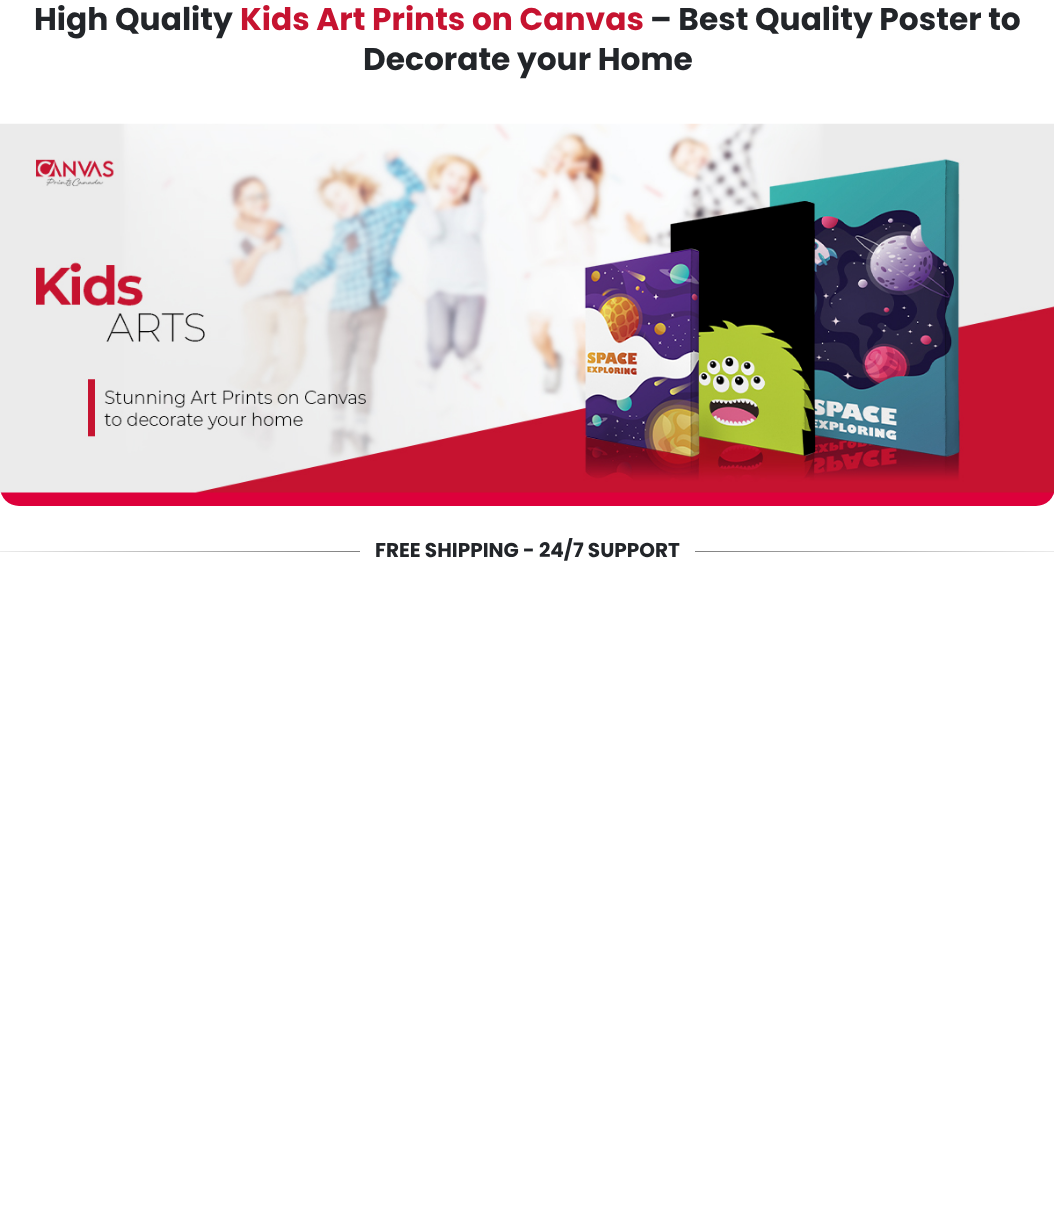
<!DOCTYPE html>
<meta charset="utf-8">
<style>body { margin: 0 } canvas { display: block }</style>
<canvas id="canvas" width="1054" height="1228"></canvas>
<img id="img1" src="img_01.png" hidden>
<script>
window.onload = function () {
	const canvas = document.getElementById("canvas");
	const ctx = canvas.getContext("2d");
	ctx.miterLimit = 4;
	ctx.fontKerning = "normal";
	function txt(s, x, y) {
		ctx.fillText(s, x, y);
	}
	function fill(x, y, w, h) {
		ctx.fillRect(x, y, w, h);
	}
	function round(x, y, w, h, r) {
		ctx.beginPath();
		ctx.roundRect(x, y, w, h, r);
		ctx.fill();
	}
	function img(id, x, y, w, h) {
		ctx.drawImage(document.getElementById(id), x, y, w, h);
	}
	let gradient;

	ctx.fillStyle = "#FFFFFF";
	fill(0, 0, 1054, 1228);
	ctx.fillStyle = "#DD003B";
	round(0, 124, 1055, 382, 19);
	img("img1", 0, 123, 1054, 370);
	gradient = ctx.createLinearGradient(0, 552, 360, 552);
	gradient.addColorStop(0, "#EBEBEB");
	gradient.addColorStop(1, "#808080");
	ctx.fillStyle = gradient;
	fill(0, 551, 360, 1);
	gradient = ctx.createLinearGradient(695, 552, 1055, 552);
	gradient.addColorStop(0, "#808080");
	gradient.addColorStop(1, "#EBEBEB");
	ctx.fillStyle = gradient;
	fill(695, 551, 359, 1);
	ctx.font = "bold 31.25px Poppins";
	ctx.fillStyle = "#222529";
	txt("High Quality", 34, 30);
	ctx.fillStyle = "#C61330";
	txt("Kids Art Prints on Canvas", 240, 30);
	ctx.fillStyle = "#222529";
	txt("– Best Quality Poster to", 650, 30);
	txt("Decorate your Home", 363, 70);
	ctx.font = "bold 20px Poppins";
	txt("FREE SHIPPING - 24/7 SUPPORT", 375, 557);
};
</script>
